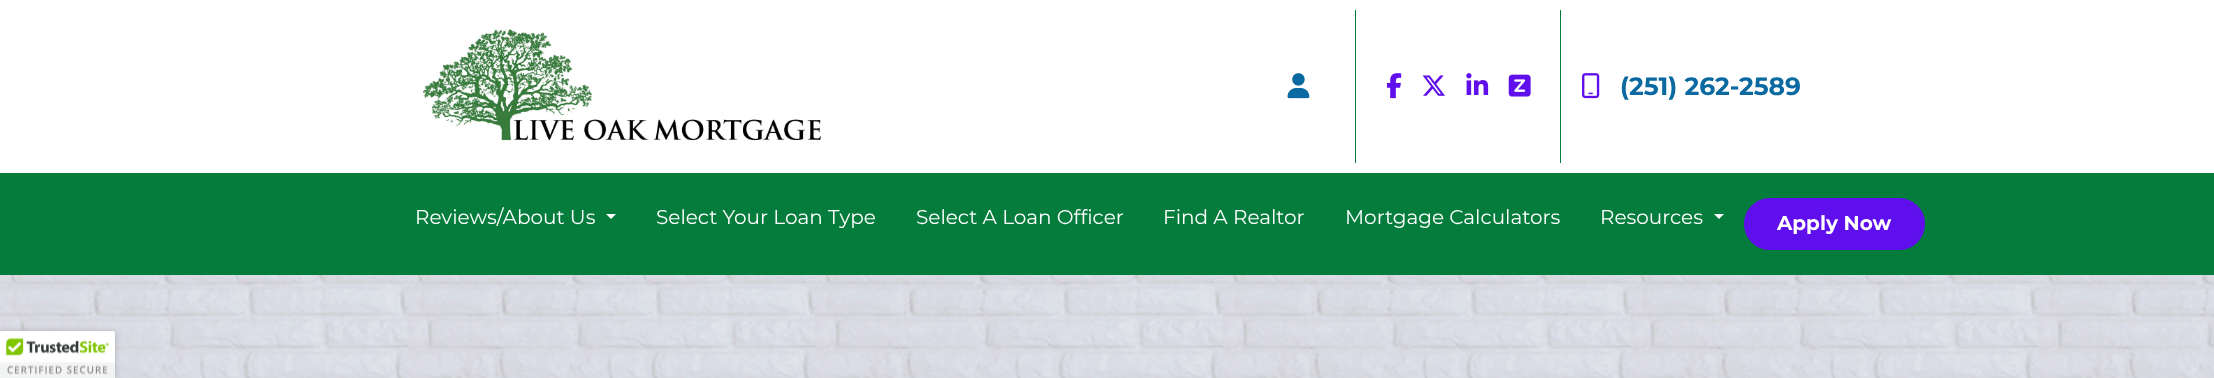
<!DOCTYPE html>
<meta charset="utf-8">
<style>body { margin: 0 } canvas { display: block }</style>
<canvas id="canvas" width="2214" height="378"></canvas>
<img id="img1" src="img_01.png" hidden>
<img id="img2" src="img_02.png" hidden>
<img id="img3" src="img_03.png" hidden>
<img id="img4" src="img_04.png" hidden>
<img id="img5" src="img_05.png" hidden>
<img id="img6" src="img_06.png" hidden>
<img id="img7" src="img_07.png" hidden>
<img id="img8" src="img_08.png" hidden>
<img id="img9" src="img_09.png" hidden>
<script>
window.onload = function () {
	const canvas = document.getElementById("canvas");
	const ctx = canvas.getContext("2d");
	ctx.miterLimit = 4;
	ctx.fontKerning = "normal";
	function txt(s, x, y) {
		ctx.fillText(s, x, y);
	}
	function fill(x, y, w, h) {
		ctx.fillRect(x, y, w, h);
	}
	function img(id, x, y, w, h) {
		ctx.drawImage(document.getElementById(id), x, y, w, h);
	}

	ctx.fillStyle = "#FFFFFF";
	fill(0, 0, 2214, 378);
	img("img1", 422, 29, 399, 112);
	img("img2", 1287, 73, 23, 26);
	ctx.fillStyle = "#047C3C";
	fill(1355, 10, 1, 153);
	img("img3", 1386, 73, 16, 26);
	img("img4", 1422, 75, 23, 21);
	img("img5", 1466, 73, 23, 22);
	img("img6", 1508, 74, 23, 23);
	fill(1560, 10, 1, 153);
	img("img7", 1582, 73, 18, 26);
	fill(0, 173, 2214, 102);
	ctx.fillStyle = "#FFFFFF";
	ctx.beginPath();
	ctx.moveTo(606, 214);
	ctx.lineTo(616, 214);
	ctx.lineTo(611, 219);
	ctx.closePath();
	ctx.fill();
	ctx.beginPath();
	ctx.moveTo(1714, 214);
	ctx.lineTo(1724, 214);
	ctx.lineTo(1719, 219);
	ctx.closePath();
	ctx.fill();
	ctx.fillStyle = "#5F0EEC";
	ctx.beginPath();
	ctx.roundRect(1746, 200, 177, 48, 24);
	ctx.fill();
	ctx.strokeStyle = "#5F0EEC";
	ctx.lineWidth = 4;
	ctx.stroke();
	img("img8", 0, 275, 2214, 103);
	ctx.fillStyle = "rgba(0, 0, 0, 0.2)";
	ctx.filter = "blur(3px)";
	ctx.beginPath();
	ctx.roundRect(0, 331, 115, 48, 2.5);
	ctx.fill();
	ctx.filter = "none";
	ctx.fillStyle = "#FFFFFF";
	ctx.beginPath();
	ctx.moveTo(0, 331);
	ctx.lineTo(112.5, 331);
	ctx.bezierCurveTo(114, 331, 115, 332, 115, 333.5);
	ctx.lineTo(115, 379);
	ctx.lineTo(0, 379);
	ctx.closePath();
	ctx.fill();
	img("img9", 0, 331, 115, 47);
	ctx.font = "bold 25px Montserrat";
	ctx.fillStyle = "#0969A0";
	txt("(251) 262-2589", 1620, 95);
	ctx.font = "20px Montserrat";
	ctx.fillStyle = "#FFFFFF";
	txt("Reviews/About Us", 415, 224);
	txt("Select Your Loan Type", 656, 224);
	txt("Select A Loan Officer", 916, 224);
	txt("Find A Realtor", 1163, 224);
	txt("Mortgage Calculators", 1345, 224);
	txt("Resources", 1600, 224);
	ctx.font = "bold 20px Montserrat";
	txt("Apply Now", 1777, 230);
};
</script>
